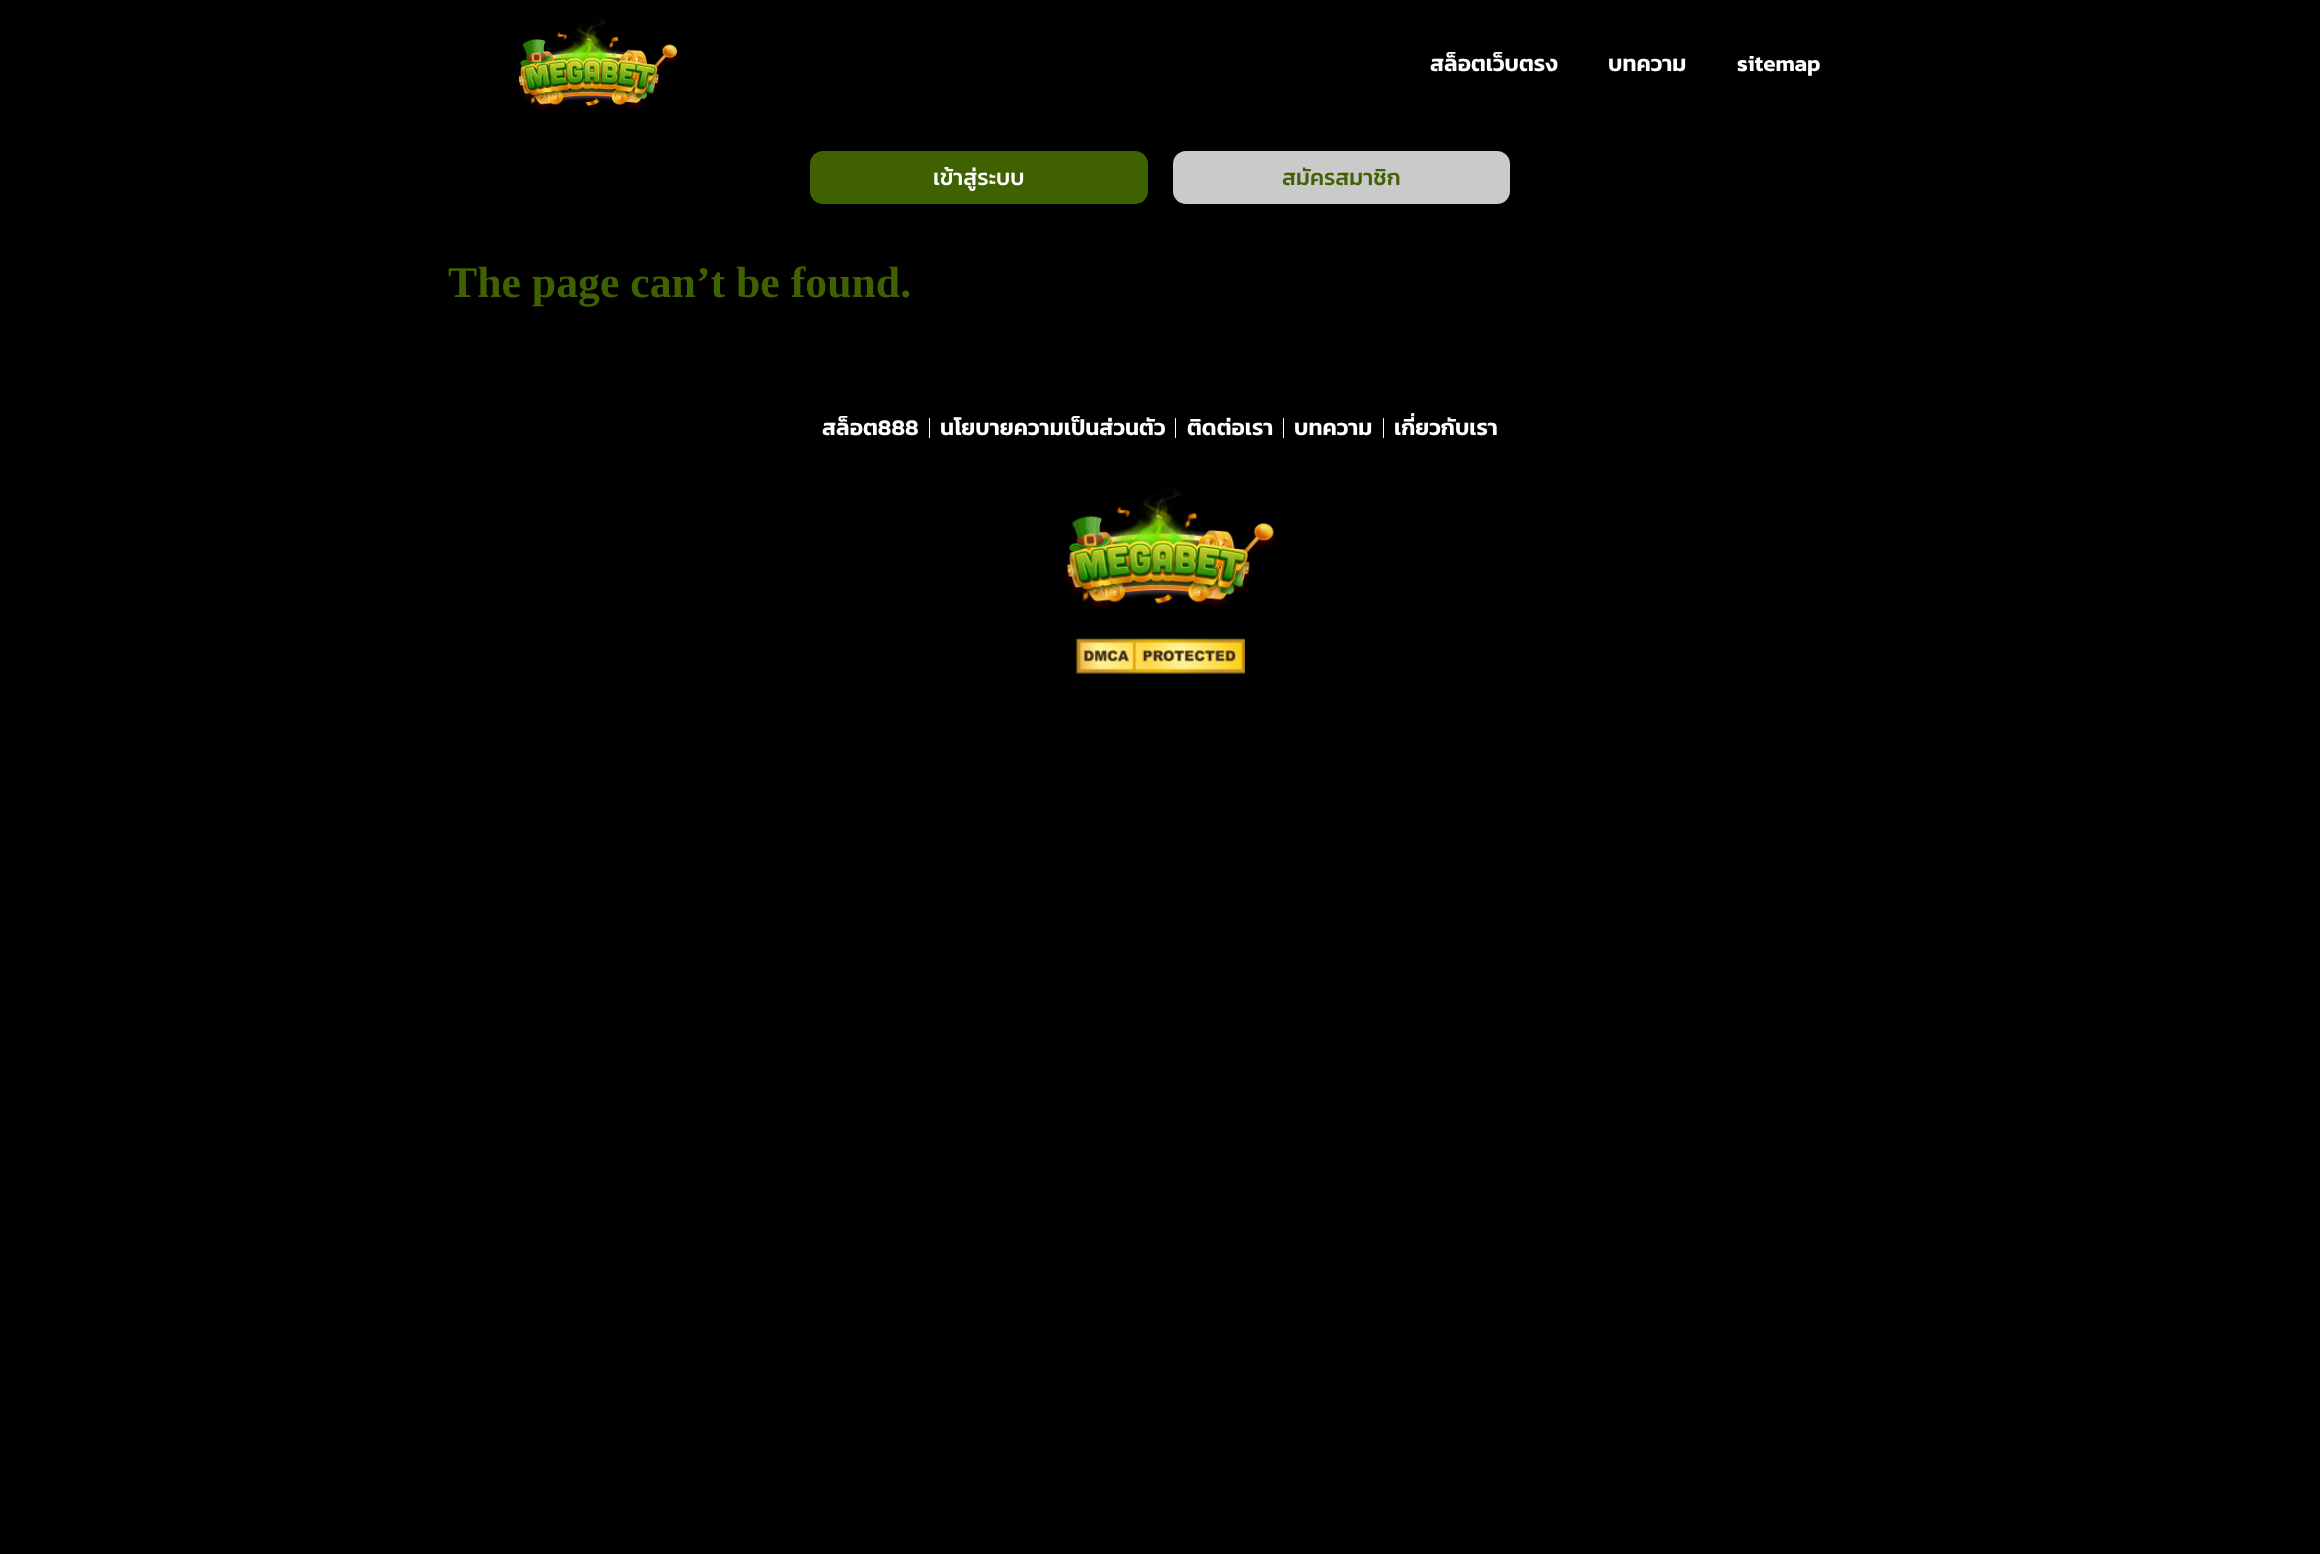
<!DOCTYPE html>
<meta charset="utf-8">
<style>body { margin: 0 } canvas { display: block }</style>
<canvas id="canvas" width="2320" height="1554"></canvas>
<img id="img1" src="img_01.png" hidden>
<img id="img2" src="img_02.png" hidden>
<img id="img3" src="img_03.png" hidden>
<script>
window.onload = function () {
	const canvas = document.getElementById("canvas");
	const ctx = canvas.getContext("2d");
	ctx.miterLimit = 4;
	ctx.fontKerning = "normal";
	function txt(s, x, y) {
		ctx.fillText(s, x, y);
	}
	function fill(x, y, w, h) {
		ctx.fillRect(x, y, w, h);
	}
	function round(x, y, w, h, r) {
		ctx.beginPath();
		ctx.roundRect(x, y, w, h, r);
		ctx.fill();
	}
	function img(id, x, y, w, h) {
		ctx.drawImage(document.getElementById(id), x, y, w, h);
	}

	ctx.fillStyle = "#000000";
	fill(0, 0, 2320, 1554);
	img("img1", 516, 17, 164, 94);
	ctx.fillStyle = "#406100";
	round(810, 151, 338, 53, 13);
	ctx.fillStyle = "#CACACA";
	round(1173, 151, 337, 53, 13);
	ctx.fillStyle = "#FFFFFF";
	fill(929, 418, 1, 20);
	fill(1175, 418, 1, 20);
	fill(1283, 418, 1, 20);
	fill(1383, 418, 1, 20);
	img("img2", 1064, 487, 213, 123);
	img("img3", 1076, 638, 169, 36);
	ctx.font = "600 22.5px Kanit";
	txt("สล็อตเว็บตรง", 1430, 71);
	txt("บทความ", 1608, 71);
	txt("sitemap", 1737, 71);
	ctx.font = "500 22.5px Kanit";
	txt("เข้าสู่ระบบ", 933, 185);
	ctx.fillStyle = "#406100";
	txt("สมัครสมาชิก", 1282, 185);
	ctx.font = "bold 43.75px Liberation Serif";
	txt("The page can’t be found.", 448, 297);
	ctx.font = "600 22.5px Kanit";
	ctx.fillStyle = "#FFFFFF";
	txt("สล็อต888", 822, 435);
	txt("นโยบายความเป็นส่วนตัว", 940, 435);
	txt("ติดต่อเรา", 1187, 435);
	txt("บทความ", 1294, 435);
	txt("เกี่ยวกับเรา", 1394, 435);
};
</script>
